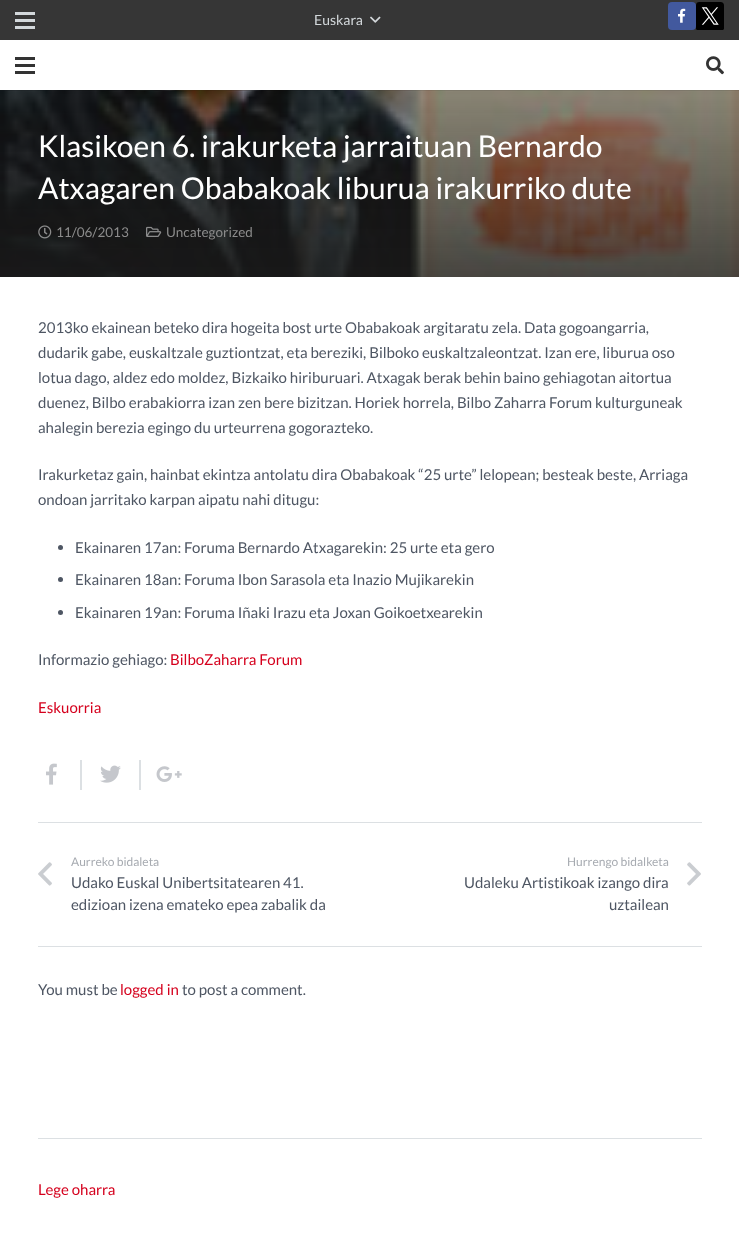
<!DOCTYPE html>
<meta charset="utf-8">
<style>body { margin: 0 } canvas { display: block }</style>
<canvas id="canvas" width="739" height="1255"></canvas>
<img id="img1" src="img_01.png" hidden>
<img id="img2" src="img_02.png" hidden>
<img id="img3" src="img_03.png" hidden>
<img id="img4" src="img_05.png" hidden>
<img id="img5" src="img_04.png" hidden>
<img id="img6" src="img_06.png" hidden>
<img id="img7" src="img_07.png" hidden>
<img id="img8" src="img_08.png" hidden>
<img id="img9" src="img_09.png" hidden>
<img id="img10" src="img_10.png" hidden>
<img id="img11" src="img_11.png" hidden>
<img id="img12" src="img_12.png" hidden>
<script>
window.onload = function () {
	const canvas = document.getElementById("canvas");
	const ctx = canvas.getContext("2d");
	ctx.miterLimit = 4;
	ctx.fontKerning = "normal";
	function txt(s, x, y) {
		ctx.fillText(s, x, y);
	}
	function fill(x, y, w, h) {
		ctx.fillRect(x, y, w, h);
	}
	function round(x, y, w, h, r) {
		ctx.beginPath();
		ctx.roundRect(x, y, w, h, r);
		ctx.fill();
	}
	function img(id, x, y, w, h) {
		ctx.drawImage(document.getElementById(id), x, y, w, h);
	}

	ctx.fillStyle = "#FFFFFF";
	fill(0, 0, 739, 1255);
	ctx.fillStyle = "#363636";
	fill(0, 0, 739, 40);
	ctx.fillStyle = "#D3D8DB";
	fill(15, 19, 20, 3);
	fill(15, 12, 20, 3);
	fill(15, 26, 20, 3);
	img("img1", 370, 16, 11, 7);
	ctx.fillStyle = "#42599E";
	round(668, 2, 28, 28, 4);
	img("img2", 678, 8, 8, 15);
	img("img3", 696, 2, 28, 28);
	img("img4", 0, 90, 739, 187);
	ctx.fillStyle = "rgba(0, 0, 0, 0.08)";
	fill(0, 90, 739, 1);
	ctx.fillStyle = "#333333";
	fill(15, 64, 20, 3);
	fill(15, 57, 20, 3);
	fill(15, 71, 20, 3);
	img("img5", 706, 56, 18, 19);
	img("img6", 38, 225, 14, 14);
	img("img7", 146, 226, 16, 11);
	ctx.fillStyle = "#4E5663";
	ctx.beginPath();
	ctx.arc(60.5, 547.5, 2.5, 0, Math.PI * 2);
	ctx.fill();
	ctx.beginPath();
	ctx.arc(60.5, 579.5, 2.5, 0, Math.PI * 2);
	ctx.fill();
	ctx.beginPath();
	ctx.arc(60.5, 612.5, 2.5, 0, Math.PI * 2);
	ctx.fill();
	ctx.fillStyle = "#DCE0E3";
	fill(80, 760, 2, 30);
	img("img8", 46, 763, 11, 22);
	fill(139, 760, 2, 30);
	img("img9", 100, 765, 21, 18);
	img("img10", 156, 766, 26, 16);
	fill(38, 822, 664, 1);
	img("img11", 38, 862, 14, 24);
	img("img12", 687, 862, 14, 24);
	fill(38, 946, 664, 1);
	fill(38, 1138, 664, 1);
	ctx.font = "14px Lato";
	ctx.fillStyle = "#D3D8DB";
	txt("Euskara", 314, 25);
	ctx.font = "30px Lato";
	ctx.fillStyle = "#FFFFFF";
	txt("Klasikoen 6. irakurketa jarraituan Bernardo", 38, 157);
	txt("Atxagaren Obabakoak liburua irakurriko dute", 38, 199);
	ctx.font = "13.5px Lato";
	ctx.fillStyle = "#8B8B8B";
	txt("11/06/2013", 56, 237);
	txt("Uncategorized", 166, 237);
	ctx.font = "15px Lato";
	ctx.fillStyle = "#4E5663";
	txt("2013ko ekainean beteko dira hogeita bost urte Obabakoak argitaratu zela. Data gogoangarria,", 38, 333);
	txt("dudarik gabe, euskaltzale guztiontzat, eta bereziki, Bilboko euskaltzaleontzat. Izan ere, liburua oso", 38, 358);
	txt("lotua dago, aldez edo moldez, Bizkaiko hiriburuari. Atxagak berak behin baino gehiagotan aitortua", 38, 383);
	txt("duenez, Bilbo erabakiorra izan zen bere bizitzan. Horiek horrela, Bilbo Zaharra Forum kulturguneak", 38, 408);
	txt("ahalegin berezia egingo du urteurrena gogorazteko.", 38, 433);
	txt("Irakurketaz gain, hainbat ekintza antolatu dira Obabakoak “25 urte” lelopean; besteak beste, Arriaga", 38, 480);
	txt("ondoan jarritako karpan aipatu nahi ditugu:", 38, 505);
	txt("Ekainaren 17an: Foruma Bernardo Atxagarekin: 25 urte eta gero", 75, 553);
	txt("Ekainaren 18an: Foruma Ibon Sarasola eta Inazio Mujikarekin", 75, 585);
	txt("Ekainaren 19an: Foruma Iñaki Irazu eta Joxan Goikoetxearekin", 75, 618);
	txt("Informazio gehiago:", 38, 665);
	ctx.fillStyle = "#D5001D";
	txt("BilboZaharra Forum", 170, 665);
	txt("Eskuorria", 38, 713);
	ctx.font = "12px Lato";
	ctx.fillStyle = "#A7ABB1";
	txt("Aurreko bidaleta", 71, 866);
	ctx.font = "15px Lato";
	ctx.fillStyle = "#4E5663";
	txt("Udako Euskal Unibertsitatearen 41.", 71, 888);
	txt("edizioan izena emateko epea zabalik da", 71, 910);
	ctx.font = "12px Lato";
	ctx.fillStyle = "#A7ABB1";
	txt("Hurrengo bidalketa", 567, 866);
	ctx.font = "15px Lato";
	ctx.fillStyle = "#4E5663";
	txt("Udaleku Artistikoak izango dira", 464, 888);
	txt("uztailean", 609, 910);
	txt("You must be", 38, 995);
	ctx.fillStyle = "#D5001D";
	txt("logged in", 120, 995);
	ctx.fillStyle = "#4E5663";
	txt("to post a comment.", 182, 995);
	ctx.fillStyle = "#D5001D";
	txt("Lege oharra", 38, 1195);
};
</script>
